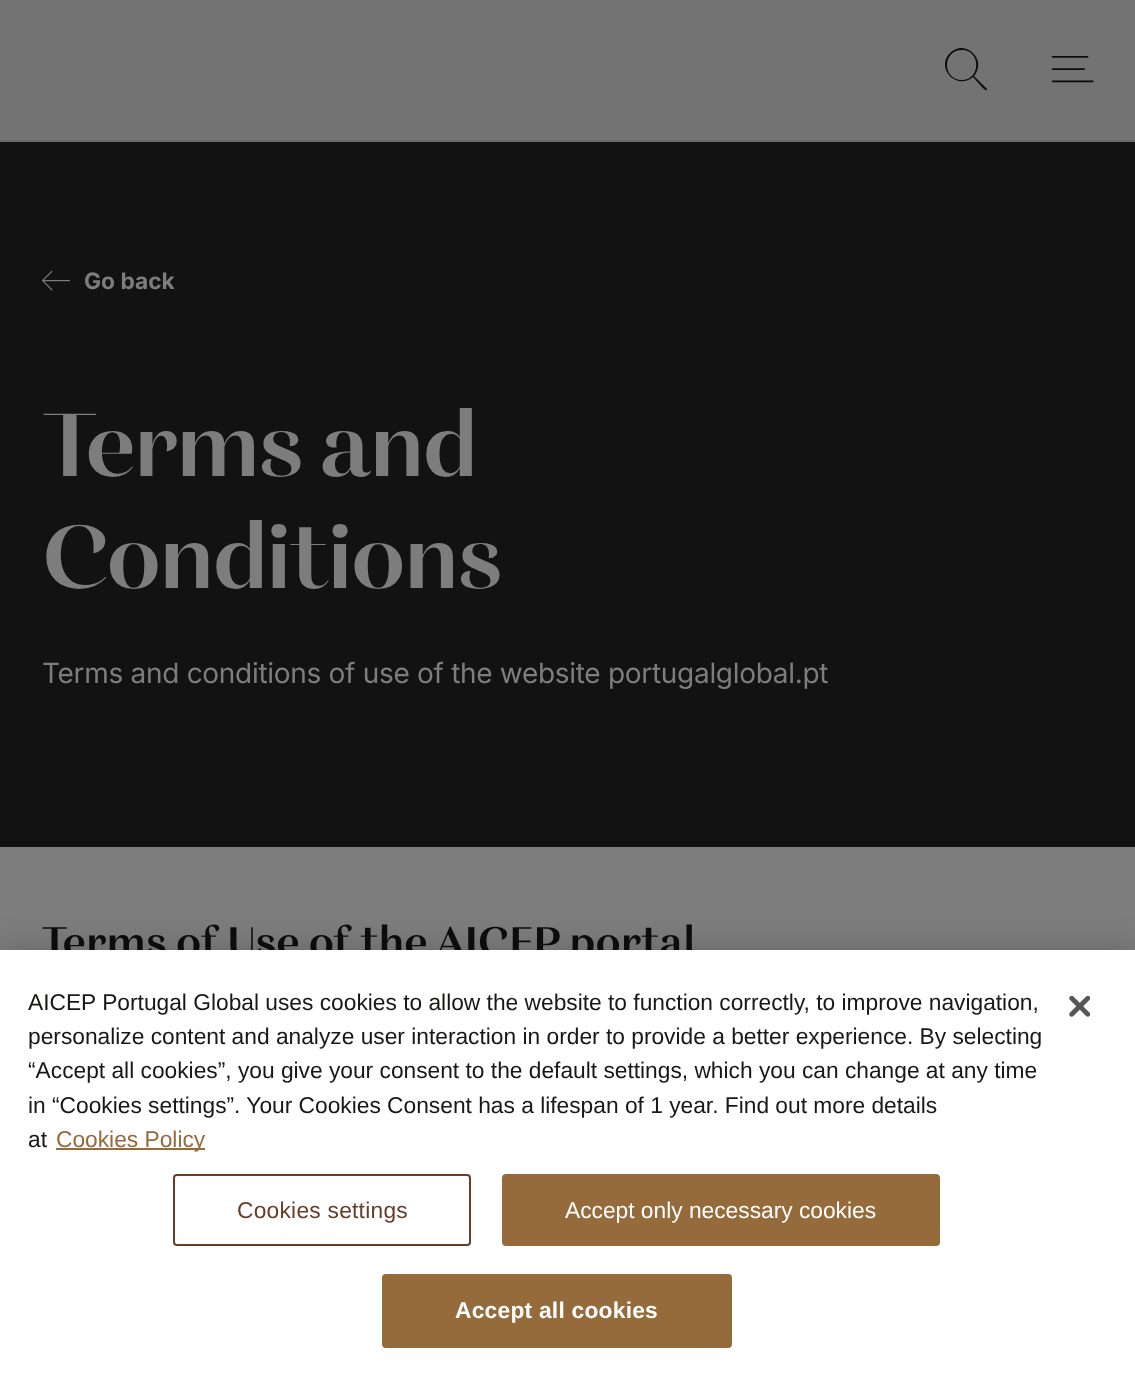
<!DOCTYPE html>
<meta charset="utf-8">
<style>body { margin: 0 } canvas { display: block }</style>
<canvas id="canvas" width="1135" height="1375"></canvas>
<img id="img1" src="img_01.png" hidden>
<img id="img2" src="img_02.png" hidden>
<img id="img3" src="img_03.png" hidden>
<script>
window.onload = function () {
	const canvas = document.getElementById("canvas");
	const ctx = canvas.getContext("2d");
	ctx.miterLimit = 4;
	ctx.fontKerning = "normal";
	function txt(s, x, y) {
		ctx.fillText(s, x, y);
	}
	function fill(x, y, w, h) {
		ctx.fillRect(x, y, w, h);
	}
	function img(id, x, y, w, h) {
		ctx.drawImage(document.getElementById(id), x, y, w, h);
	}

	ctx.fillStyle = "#121212";
	fill(0, 0, 1135, 1375);
	ctx.fillStyle = "#737373";
	fill(0, 0, 1135, 140);
	ctx.fillStyle = "#0D0C0C";
	ctx.beginPath();
	ctx.moveTo(987, 89);
	ctx.lineTo(974, 76);
	ctx.bezierCurveTo(988, 60, 965, 38, 950, 53);
	ctx.bezierCurveTo(935, 68, 957, 91, 973, 77);
	ctx.lineTo(981, 86);
	ctx.bezierCurveTo(981, 86, 985, 91, 987, 90);
	ctx.closePath();
	ctx.moveTo(962, 80);
	ctx.bezierCurveTo(942, 80, 942, 50, 962, 50);
	ctx.bezierCurveTo(981, 50, 981, 80, 962, 80);
	ctx.closePath();
	ctx.fill();
	img("img1", 1051, 56, 43, 27);
	ctx.fillStyle = "#6A6A69";
	fill(0, 140, 1135, 2);
	img("img2", 42, 270, 28, 21);
	ctx.fillStyle = "#7D7D7D";
	fill(0, 847, 1135, 103);
	ctx.fillStyle = "rgba(0, 0, 0, 0.2)";
	ctx.filter = "blur(16px)";
	ctx.beginPath();
	ctx.rect(0, 950, 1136, 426);
	ctx.fill();
	ctx.filter = "none";
	ctx.font = "bold 22.75px Inter";
	ctx.fillStyle = "#7D7D7D";
	txt("Go back", 84, 289);
	ctx.letterSpacing = "-2.6px";
	ctx.font = "600 98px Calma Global";
	txt("Terms and", 42, 476);
	txt("Conditions", 42, 588);
	ctx.letterSpacing = "-0.3px";
	ctx.font = "28px Inter";
	txt("Terms and conditions of use of the website portugalglobal.pt", 42, 683);
	ctx.letterSpacing = "0px";
	ctx.font = "500 45.5px Calma Global";
	ctx.fillStyle = "#0D0C0C";
	txt("Terms of Use of the AICEP portal", 42, 956);
	ctx.fillStyle = "#FFFFFF";
	fill(0, 950, 1135, 425);
	ctx.font = "22.75px Liberation Sans";
	ctx.fillStyle = "#1A1817";
	txt("AICEP Portugal Global uses cookies to allow the website to function correctly, to improve navigation,", 28, 1010);
	txt("personalize content and analyze user interaction in order to provide a better experience. By selecting", 28, 1044);
	txt("“Accept all cookies”, you give your consent to the default settings, which you can change at any time", 28, 1078);
	txt("in “Cookies settings”. Your Cookies Consent has a lifespan of 1 year. Find out more details", 28, 1113);
	txt("at", 28, 1147);
	ctx.fillStyle = "#966B3C";
	fill(56, 1148, 149, 2);
	txt("Cookies Policy", 56, 1147);
	ctx.beginPath();
	ctx.roundRect(174, 1175, 296, 70, 3);
	ctx.strokeStyle = "#673E2A";
	ctx.lineWidth = 2;
	ctx.stroke();
	ctx.letterSpacing = "0.25px";
	ctx.fillStyle = "#673E2A";
	txt("Cookies settings", 237, 1218);
	ctx.fillStyle = "#966B3C";
	ctx.beginPath();
	ctx.roundRect(503, 1175, 436, 70, 3);
	ctx.fill();
	ctx.strokeStyle = "#966B3C";
	ctx.stroke();
	ctx.letterSpacing = "0px";
	ctx.fillStyle = "#FFFFFF";
	txt("Accept only necessary cookies", 565, 1218);
	ctx.fillStyle = "#966B3C";
	ctx.beginPath();
	ctx.roundRect(383, 1275, 348, 72, 3);
	ctx.fill();
	ctx.stroke();
	ctx.letterSpacing = "0.25px";
	ctx.font = "bold 22.75px Liberation Sans";
	ctx.fillStyle = "#FFFFFF";
	txt("Accept all cookies", 455, 1318);
	img("img3", 1069, 996, 21, 21);
};
</script>
